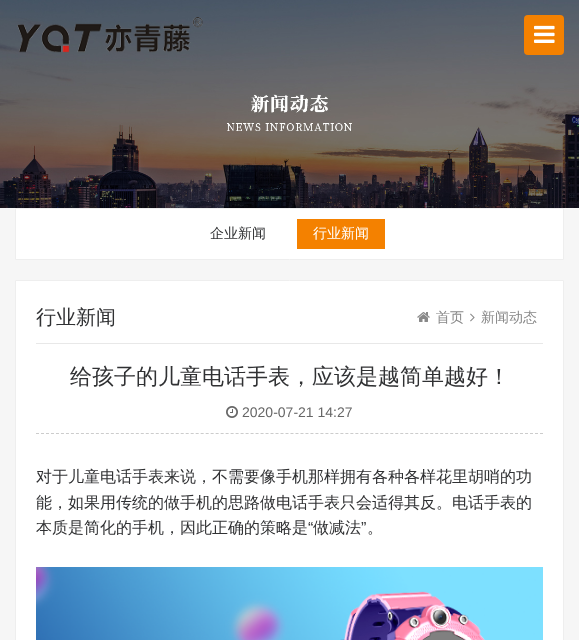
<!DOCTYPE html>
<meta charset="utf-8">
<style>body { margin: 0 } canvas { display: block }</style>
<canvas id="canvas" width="579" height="640"></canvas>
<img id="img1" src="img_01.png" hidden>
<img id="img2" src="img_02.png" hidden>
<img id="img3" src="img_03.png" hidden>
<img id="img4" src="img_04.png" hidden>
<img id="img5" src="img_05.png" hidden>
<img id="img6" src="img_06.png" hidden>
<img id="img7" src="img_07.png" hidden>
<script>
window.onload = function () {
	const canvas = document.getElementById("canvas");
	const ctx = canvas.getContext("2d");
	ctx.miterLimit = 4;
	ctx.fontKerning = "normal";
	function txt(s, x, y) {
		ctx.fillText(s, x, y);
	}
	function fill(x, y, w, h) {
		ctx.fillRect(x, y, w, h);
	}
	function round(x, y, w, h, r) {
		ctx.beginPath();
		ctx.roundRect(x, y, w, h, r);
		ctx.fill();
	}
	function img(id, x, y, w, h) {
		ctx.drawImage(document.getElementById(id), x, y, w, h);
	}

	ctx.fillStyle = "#F6F6F6";
	fill(0, 0, 579, 640);
	img("img1", 0, 0, 579, 208);
	img("img2", 17, 17, 186, 36);
	ctx.fillStyle = "#F48100";
	round(524, 15, 40, 40, 4);
	img("img3", 534, 25, 21, 18);
	ctx.fillStyle = "#FFFFFF";
	ctx.beginPath();
	ctx.rect(15.5, 208.5, 548, 51);
	ctx.fill();
	ctx.strokeStyle = "#EEEEEE";
	ctx.stroke();
	ctx.fillStyle = "#F48100";
	fill(297, 219, 88, 30);
	ctx.fillStyle = "#FFFFFF";
	ctx.beginPath();
	ctx.rect(15.5, 280.5, 548, 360);
	ctx.fill();
	ctx.stroke();
	ctx.fillStyle = "#E8E8E8";
	fill(36, 343, 507, 1);
	img("img4", 417, 312, 13, 10);
	img("img5", 470, 313, 5, 9);
	ctx.beginPath();
	ctx.moveTo(36, 433.5);
	ctx.lineTo(543, 433.5);
	ctx.strokeStyle = "#CCCCCC";
	ctx.setLineDash([3, 1.99]);
	ctx.stroke();
	img("img6", 226, 406, 12, 12);
	img("img7", 36, 567, 507, 73);
	ctx.font = "500 14px WenQuanYi Zen Hei";
	ctx.fillStyle = "#303133";
	txt("企业新闻", 210, 238);
	ctx.fillStyle = "#FFFFFF";
	txt("行业新闻", 313, 238);
	ctx.font = "500 20px WenQuanYi Zen Hei";
	ctx.fillStyle = "#303133";
	txt("行业新闻", 36, 324);
	ctx.font = "500 14px WenQuanYi Zen Hei";
	ctx.fillStyle = "#888888";
	txt("首页", 436, 322);
	txt("新闻动态", 481, 322);
	ctx.font = "500 22px WenQuanYi Zen Hei";
	ctx.fillStyle = "#303133";
	txt("给孩子的儿童电话手表，应该是越简单越好！", 70, 384);
	ctx.font = "14px Liberation Sans";
	ctx.fillStyle = "#666666";
	txt("2020-07-21 14:27", 242, 417);
	ctx.font = "500 16px WenQuanYi Zen Hei";
	ctx.fillStyle = "#303133";
	txt("对于儿童电话手表来说，不需要像手机那样拥有各种各样花里胡哨的功", 36, 482);
	txt("能，如果用传统的做手机的思路做电话手表只会适得其反。电话手表的", 36, 508);
	txt("本质是简化的手机，因此正确的策略是", 36, 533);
	ctx.font = "16px Liberation Sans";
	txt("“", 308, 533);
	ctx.font = "500 16px WenQuanYi Zen Hei";
	txt("做减法", 313, 533);
	ctx.font = "16px Liberation Sans";
	txt("”", 361, 533);
	ctx.font = "500 16px WenQuanYi Zen Hei";
	txt("。", 367, 533);
};
</script>
